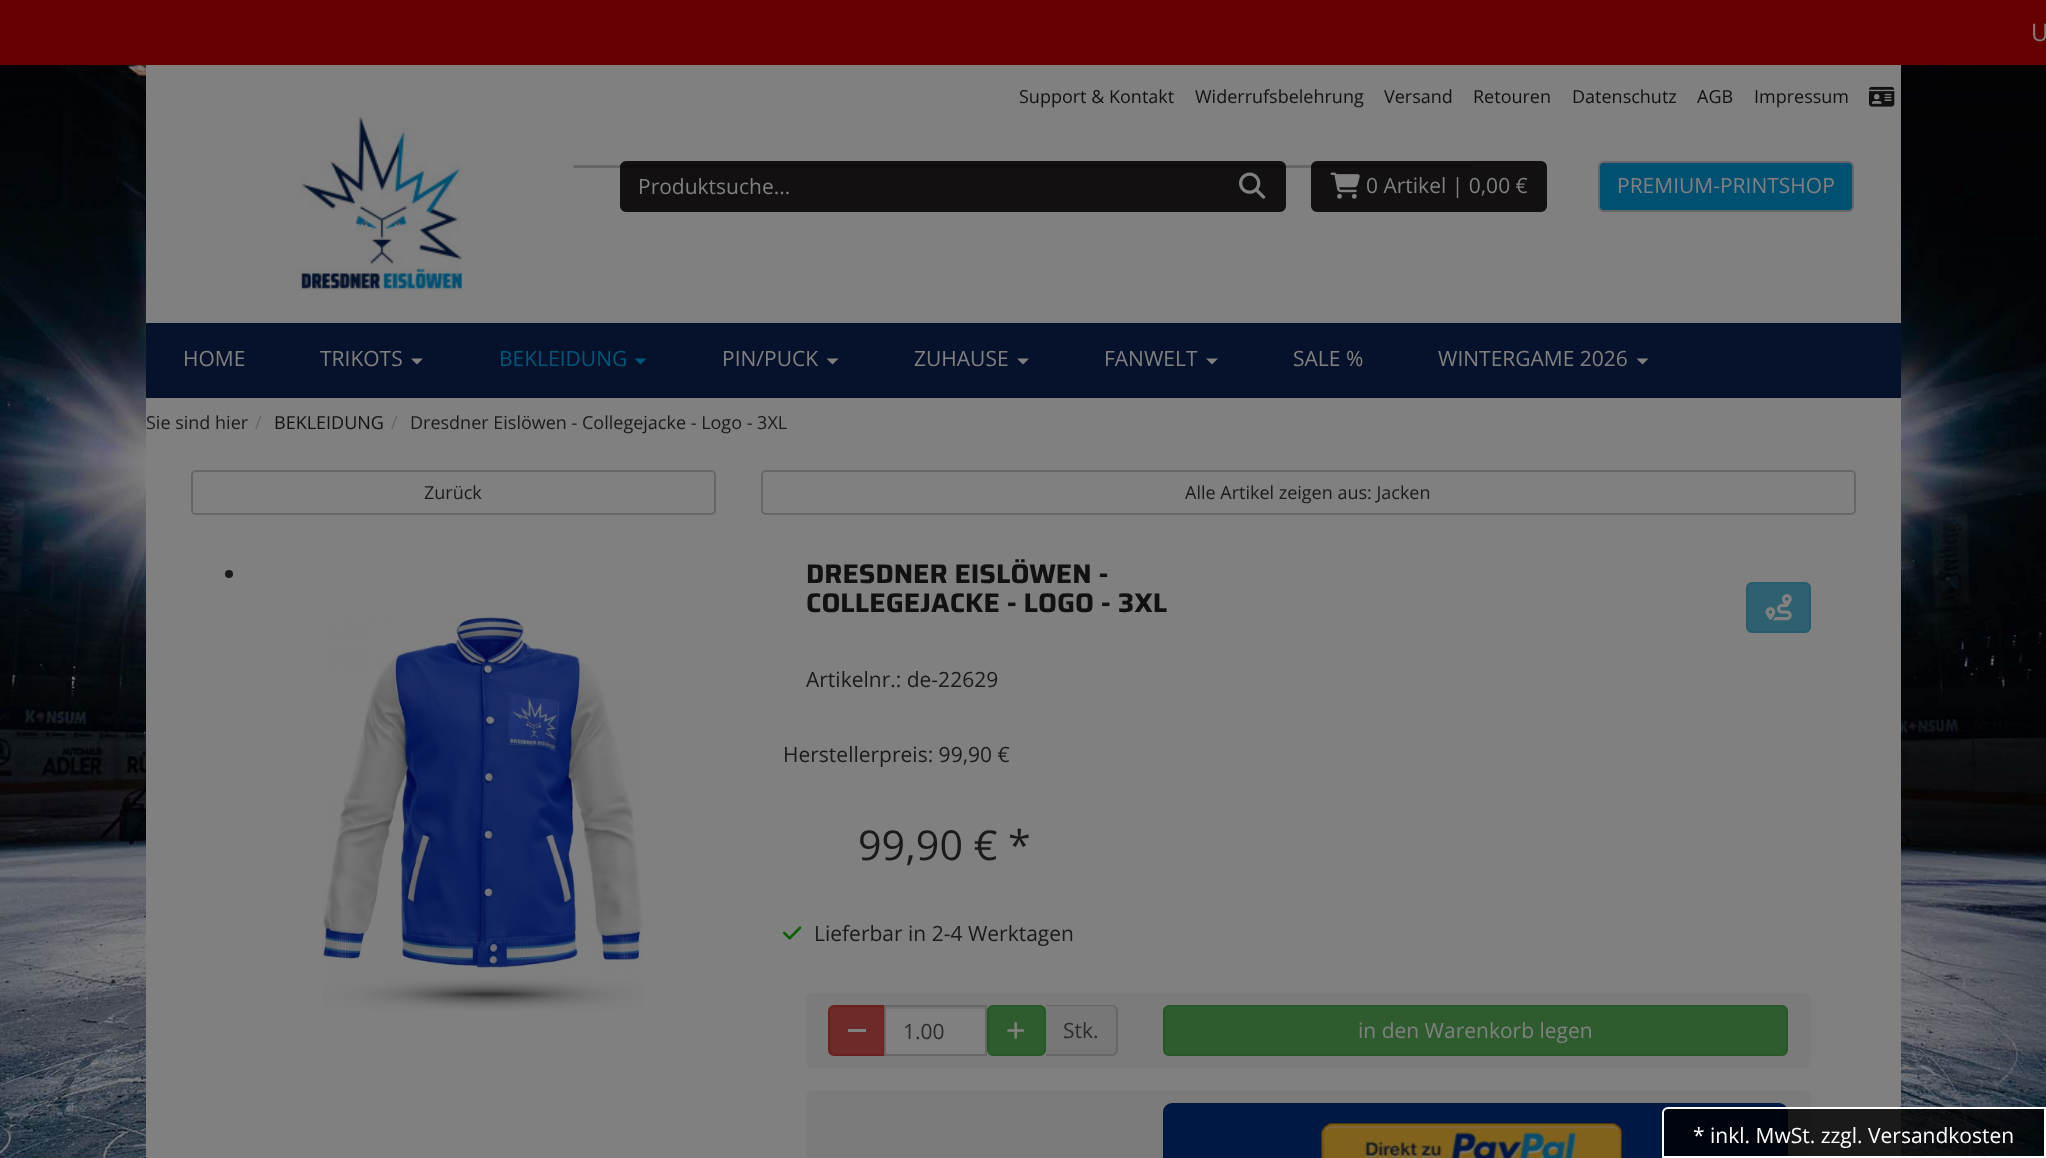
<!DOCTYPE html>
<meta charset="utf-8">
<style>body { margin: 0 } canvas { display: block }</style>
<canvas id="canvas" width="2046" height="1158"></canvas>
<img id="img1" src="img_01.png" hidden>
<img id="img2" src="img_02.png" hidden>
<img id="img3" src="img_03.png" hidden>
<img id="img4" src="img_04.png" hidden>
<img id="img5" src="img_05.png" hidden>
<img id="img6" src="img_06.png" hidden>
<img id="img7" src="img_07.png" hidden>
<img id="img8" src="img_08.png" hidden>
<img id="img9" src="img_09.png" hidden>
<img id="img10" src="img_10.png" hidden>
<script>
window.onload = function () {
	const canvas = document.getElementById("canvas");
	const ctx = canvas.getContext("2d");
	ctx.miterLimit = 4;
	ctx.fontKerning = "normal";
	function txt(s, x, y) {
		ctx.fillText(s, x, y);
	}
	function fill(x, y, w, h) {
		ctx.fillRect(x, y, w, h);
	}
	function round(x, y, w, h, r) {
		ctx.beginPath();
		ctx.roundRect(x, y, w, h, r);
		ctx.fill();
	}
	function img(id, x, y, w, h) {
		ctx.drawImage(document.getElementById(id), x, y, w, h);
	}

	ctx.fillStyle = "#FFFFFF";
	fill(0, 0, 2046, 1158);
	img("img1", 0, 65, 2046, 1093);
	ctx.fillStyle = "#660000";
	fill(0, 0, 2046, 65);
	ctx.fillStyle = "#808080";
	fill(146, 65, 1755, 258);
	img("img2", 1869, 86, 26, 21);
	img("img3", 298, 115, 164, 176);
	ctx.fillStyle = "#121010";
	ctx.beginPath();
	ctx.roundRect(621, 162, 599, 49, [5, 0, 0, 5]);
	ctx.fill();
	ctx.strokeStyle = "#121010";
	ctx.lineWidth = 2;
	ctx.stroke();
	ctx.beginPath();
	ctx.roundRect(1221, 162, 64, 49, [0, 5, 5, 0]);
	ctx.fill();
	ctx.stroke();
	img("img4", 1239, 172, 27, 27);
	ctx.beginPath();
	ctx.roundRect(1312, 162, 234, 49, 5);
	ctx.fill();
	ctx.stroke();
	img("img5", 1330, 172, 30, 27);
	ctx.fillStyle = "#005072";
	ctx.beginPath();
	ctx.roundRect(1599, 162, 254, 49, 5);
	ctx.fill();
	ctx.strokeStyle = "#666666";
	ctx.stroke();
	ctx.fillStyle = "#06122B";
	fill(146, 323, 1755, 75);
	ctx.fillStyle = "#808080";
	ctx.beginPath();
	ctx.moveTo(411, 358.5);
	ctx.lineTo(423, 358.5);
	ctx.lineTo(417, 364.5);
	ctx.closePath();
	ctx.fill();
	ctx.fillStyle = "#005778";
	ctx.beginPath();
	ctx.moveTo(634.5, 358.5);
	ctx.lineTo(646.5, 358.5);
	ctx.lineTo(640.5, 364.5);
	ctx.closePath();
	ctx.fill();
	ctx.fillStyle = "#808080";
	ctx.beginPath();
	ctx.moveTo(826.5, 358.5);
	ctx.lineTo(838.5, 358.5);
	ctx.lineTo(832.5, 364.5);
	ctx.closePath();
	ctx.fill();
	ctx.beginPath();
	ctx.moveTo(1017, 358.5);
	ctx.lineTo(1029, 358.5);
	ctx.lineTo(1023, 364.5);
	ctx.closePath();
	ctx.fill();
	ctx.beginPath();
	ctx.moveTo(1206, 358.5);
	ctx.lineTo(1218, 358.5);
	ctx.lineTo(1212, 364.5);
	ctx.closePath();
	ctx.fill();
	ctx.beginPath();
	ctx.moveTo(1636.5, 358.5);
	ctx.lineTo(1648.5, 358.5);
	ctx.lineTo(1642.5, 364.5);
	ctx.closePath();
	ctx.fill();
	fill(146, 398, 1755, 760);
	ctx.beginPath();
	ctx.roundRect(192, 471, 523, 43, 4);
	ctx.stroke();
	ctx.beginPath();
	ctx.roundRect(762, 471, 1093, 43, 4);
	ctx.stroke();
	ctx.fillStyle = "#1A1A1A";
	ctx.beginPath();
	ctx.arc(229, 574, 4, 0, Math.PI * 2);
	ctx.fill();
	img("img6", 322, 616, 321, 395);
	ctx.fillStyle = "#2E606F";
	ctx.beginPath();
	ctx.roundRect(1747, 583, 63, 49, 5);
	ctx.fill();
	ctx.strokeStyle = "#235C6D";
	ctx.stroke();
	img("img7", 1765, 594, 27, 27);
	img("img8", 783, 926, 19, 14);
	ctx.fillStyle = "#7B7B7B";
	round(806, 993, 1005, 75, 6);
	ctx.fillStyle = "#6D2A28";
	ctx.beginPath();
	ctx.roundRect(829, 1006, 55, 49, [5, 0, 0, 5]);
	ctx.fill();
	ctx.strokeStyle = "#6A201D";
	ctx.stroke();
	ctx.fillStyle = "#808080";
	fill(848, 1029, 18, 3);
	fill(886, 1009, 99, 45);
	ctx.fillStyle = "#767676";
	fill(885, 1007, 101, 2);
	ctx.strokeStyle = "#666666";
	ctx.strokeRect(885, 1006, 101, 49);
	ctx.fillStyle = "#2E5C2E";
	ctx.beginPath();
	ctx.roundRect(988, 1006, 57, 49, 5);
	ctx.fill();
	ctx.strokeStyle = "#265726";
	ctx.stroke();
	img("img9", 1007, 1022, 18, 17);
	ctx.fillStyle = "#777777";
	ctx.beginPath();
	ctx.roundRect(1046, 1005, 72, 51, [0, 6, 6, 0]);
	ctx.fill();
	ctx.fillStyle = "#666666";
	ctx.beginPath();
	ctx.moveTo(1046, 1005);
	ctx.lineTo(1112, 1005);
	ctx.bezierCurveTo(1115, 1005, 1118, 1008, 1118, 1011);
	ctx.lineTo(1118, 1050);
	ctx.bezierCurveTo(1118, 1053, 1115, 1056, 1112, 1056);
	ctx.lineTo(1046, 1056);
	ctx.closePath();
	ctx.moveTo(1046, 1006);
	ctx.lineTo(1112, 1006);
	ctx.bezierCurveTo(1114, 1006, 1116, 1009, 1116, 1011);
	ctx.lineTo(1116, 1050);
	ctx.bezierCurveTo(1116, 1052, 1114, 1054, 1112, 1054);
	ctx.lineTo(1046, 1054);
	ctx.closePath();
	ctx.fill("evenodd");
	ctx.fillStyle = "#2E5C2E";
	ctx.beginPath();
	ctx.roundRect(1164, 1006, 623, 49, 5);
	ctx.fill();
	ctx.stroke();
	ctx.fillStyle = "#7B7B7B";
	round(806, 1091, 1005, 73, 6);
	ctx.fillStyle = "#001844";
	round(1163, 1103, 625, 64, 9);
	img("img10", 1321, 1123, 301, 35);
	ctx.fillStyle = "rgba(0, 0, 0, 0.8)";
	ctx.beginPath();
	ctx.roundRect(1663, 1108, 382, 49, [5, 0, 0, 0]);
	ctx.fill();
	ctx.strokeStyle = "#FFFFFF";
	ctx.stroke();
	ctx.fillStyle = "rgba(0, 0, 0, 0.2)";
	round(573, 165, 900, 3, 1.5);
	ctx.font = "24px Open Sans";
	ctx.fillStyle = "#808080";
	txt("U", 2031, 41);
	ctx.font = "18px Open Sans";
	ctx.fillStyle = "#121010";
	txt("Support & Kontakt", 1019, 103);
	txt("Widerrufsbelehrung", 1195, 103);
	txt("Versand", 1384, 103);
	txt("Retouren", 1473, 103);
	txt("Datenschutz", 1572, 103);
	txt("AGB", 1697, 103);
	txt("Impressum", 1754, 103);
	ctx.font = "21px Open Sans";
	ctx.fillStyle = "#808080";
	txt("Produktsuche...", 638, 194);
	txt("0 Artikel | 0,00 €", 1366, 193);
	txt("PREMIUM-PRINTSHOP", 1617, 193);
	txt("HOME", 183, 366);
	txt("TRIKOTS", 320, 366);
	ctx.fillStyle = "#005778";
	txt("BEKLEIDUNG", 499, 366);
	ctx.fillStyle = "#808080";
	txt("PIN/PUCK", 722, 366);
	txt("ZUHAUSE", 914, 366);
	txt("FANWELT", 1104, 366);
	txt("SALE %", 1293, 366);
	txt("WINTERGAME 2026", 1438, 366);
	ctx.font = "18px Open Sans";
	ctx.fillStyle = "#1A1A1A";
	txt("Sie sind hier", 146, 429);
	ctx.fillStyle = "#666666";
	txt("/", 255, 429);
	ctx.fillStyle = "#121010";
	txt("BEKLEIDUNG", 274, 429);
	ctx.fillStyle = "#666666";
	txt("/", 391, 429);
	ctx.fillStyle = "#1A1A1A";
	txt("Dresdner Eislöwen - Collegejacke - Logo - 3XL", 410, 429);
	txt("Zurück", 424, 499);
	txt("Alle Artikel zeigen aus: Jacken", 1185, 499);
	ctx.font = "bold 27px Saira";
	ctx.fillStyle = "#121010";
	txt("DRESDNER EISLÖWEN -", 806, 583);
	txt("COLLEGEJACKE - LOGO - 3XL", 806, 612);
	ctx.font = "21px Open Sans";
	ctx.fillStyle = "#1A1A1A";
	txt("Artikelnr.: de-22629", 806, 687);
	txt("Herstellerpreis: 99,90 €", 783, 762);
	ctx.font = "41.25px Open Sans";
	txt("99,90 € *", 858, 860);
	ctx.font = "21px Open Sans";
	txt("Lieferbar in 2-4 Werktagen", 814, 941);
	ctx.fillStyle = "#2B2B2B";
	txt("1.00", 903, 1039);
	txt("Stk.", 1063, 1038);
	ctx.fillStyle = "#808080";
	txt("in den Warenkorb legen", 1358, 1038);
	ctx.fillStyle = "#FFFFFF";
	txt("* inkl. MwSt. zzgl. Versandkosten", 1693, 1143);
};
</script>
